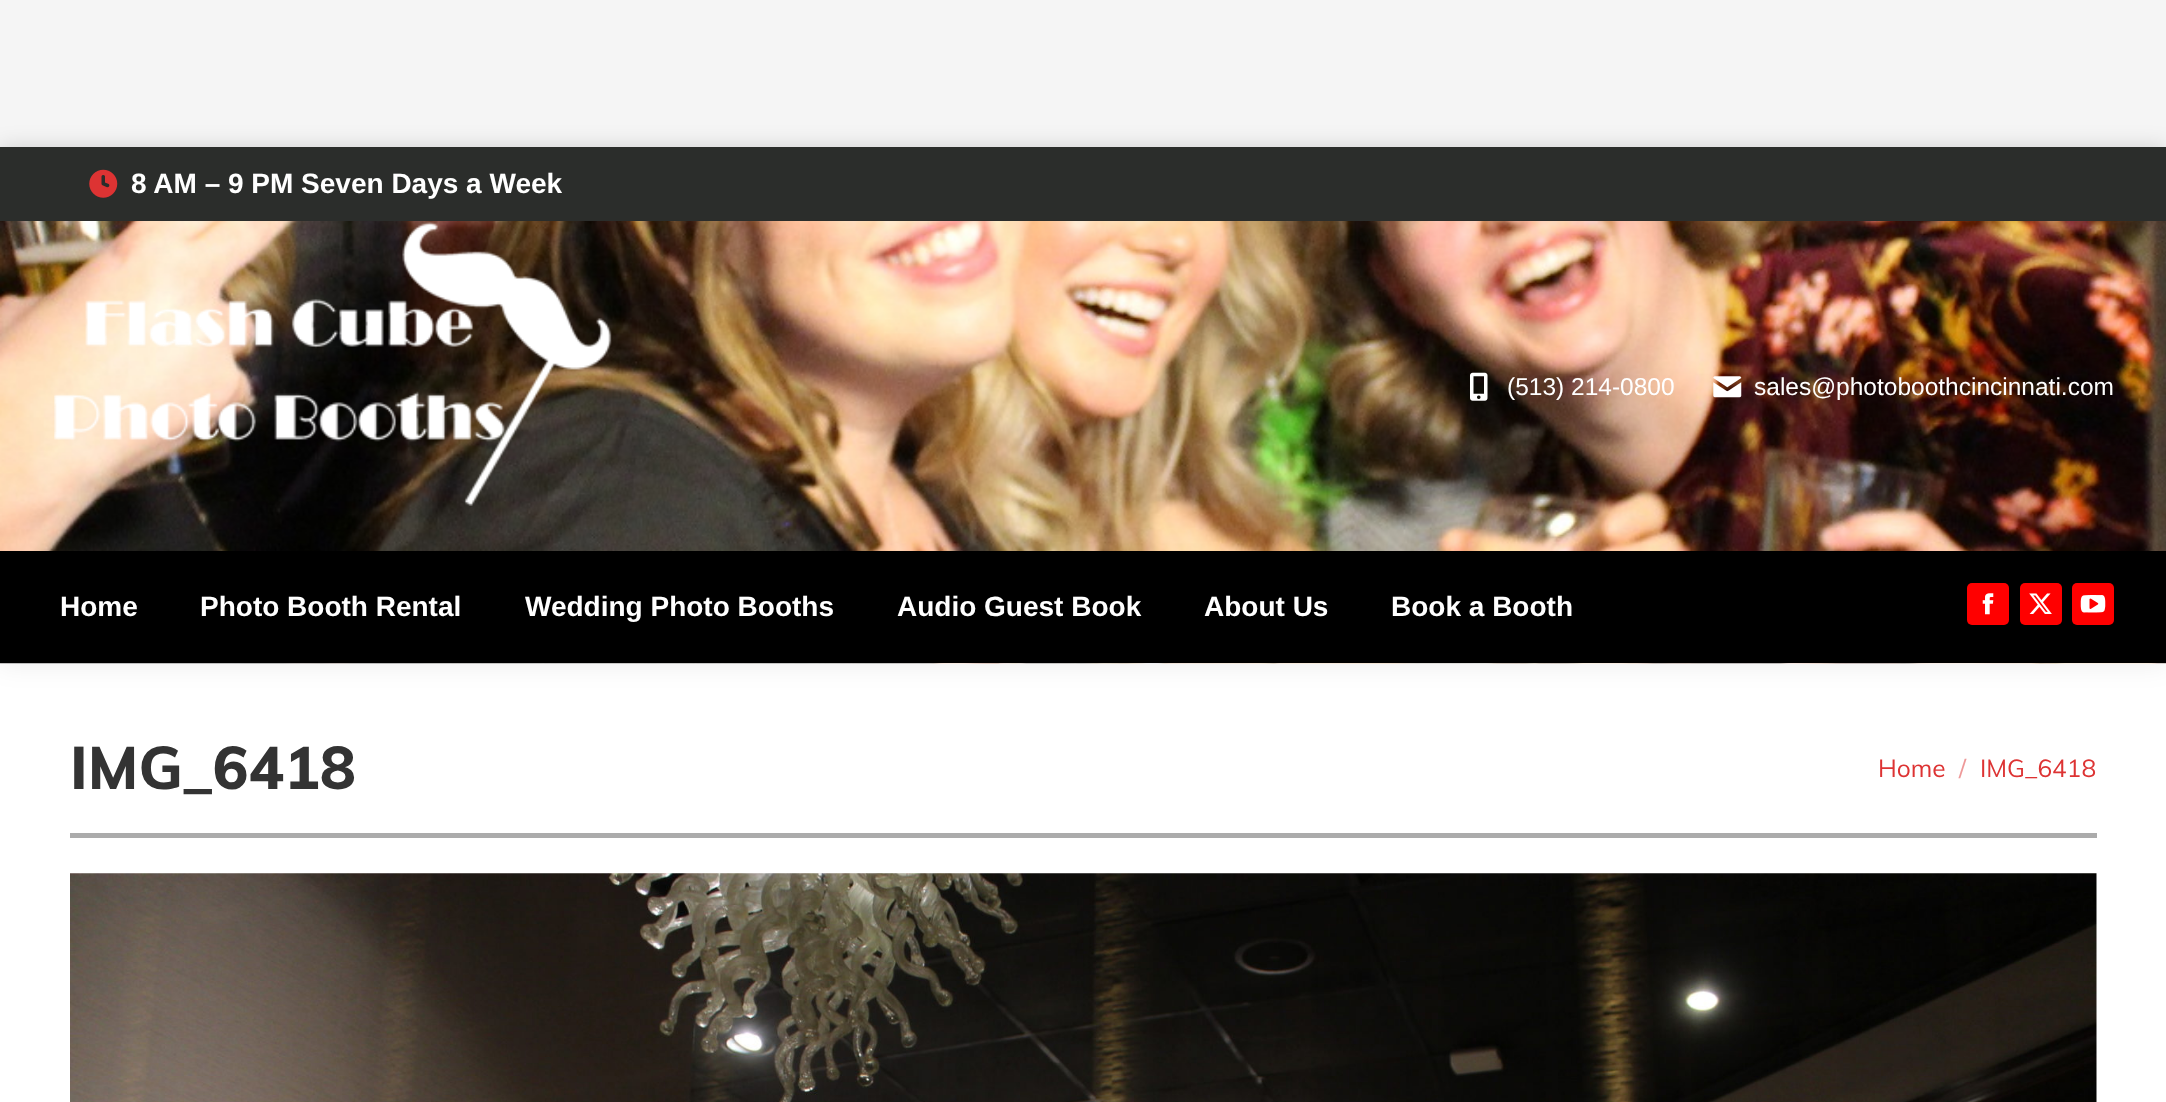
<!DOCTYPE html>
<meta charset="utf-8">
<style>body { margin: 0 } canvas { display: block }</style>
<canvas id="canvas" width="2166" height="1102"></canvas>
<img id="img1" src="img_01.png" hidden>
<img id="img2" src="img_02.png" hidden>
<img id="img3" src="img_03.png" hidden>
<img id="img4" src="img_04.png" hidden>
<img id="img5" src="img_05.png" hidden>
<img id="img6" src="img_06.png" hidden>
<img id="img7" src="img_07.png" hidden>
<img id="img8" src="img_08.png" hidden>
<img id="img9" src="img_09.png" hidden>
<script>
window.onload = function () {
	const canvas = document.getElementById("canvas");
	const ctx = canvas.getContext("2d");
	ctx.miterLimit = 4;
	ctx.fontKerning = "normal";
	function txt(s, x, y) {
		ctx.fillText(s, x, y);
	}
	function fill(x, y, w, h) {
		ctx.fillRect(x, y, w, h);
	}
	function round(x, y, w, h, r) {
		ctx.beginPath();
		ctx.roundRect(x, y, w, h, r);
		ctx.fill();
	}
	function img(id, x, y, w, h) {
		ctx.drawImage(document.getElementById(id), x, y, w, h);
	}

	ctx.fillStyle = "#F5F5F5";
	fill(0, 0, 2166, 1102);
	ctx.fillStyle = "rgba(0, 0, 0, 0.15)";
	ctx.filter = "blur(10.5px)";
	ctx.beginPath();
	ctx.rect(0, 147, 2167, 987);
	ctx.fill();
	ctx.filter = "none";
	ctx.fillStyle = "#FFFFFF";
	fill(0, 663, 2166, 439);
	ctx.save();
	ctx.beginPath();
	ctx.rect(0, 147, 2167, 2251);
	ctx.clip();
	ctx.fillStyle = "rgba(0, 0, 0, 0.07)";
	ctx.filter = "blur(13px)";
	ctx.beginPath();
	ctx.rect(-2, 145, 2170, 520);
	ctx.fill();
	ctx.filter = "none";
	ctx.restore();
	img("img1", 0, 221, 2166, 443);
	ctx.fillStyle = "#2B2D2B";
	fill(0, 147, 2166, 74);
	img("img2", 89, 169, 29, 29);
	img("img3", 54, 222, 558, 284);
	img("img4", 1470, 372, 18, 29);
	img("img5", 1713, 376, 29, 22);
	ctx.fillStyle = "#000000";
	fill(0, 551, 2166, 112);
	ctx.fillStyle = "#FF0000";
	round(1967, 583, 42, 42, 5);
	img("img6", 1982, 593, 12, 22);
	round(2020, 583, 42, 42, 5);
	img("img7", 2029, 593, 23, 21);
	round(2072, 583, 42, 42, 5);
	img("img8", 2080, 595, 26, 18);
	ctx.fillStyle = "#ABABAB";
	fill(70, 833, 2027, 5);
	img("img9", 70, 873, 2027, 229);
	ctx.font = "bold 28px Liberation Sans";
	ctx.fillStyle = "#FFFFFF";
	txt("8 AM – 9 PM Seven Days a Week", 131, 193);
	ctx.font = "24.5px Liberation Sans";
	txt("(513) 214-0800", 1507, 395);
	txt("sales@photoboothcincinnati.com", 1754, 395);
	ctx.font = "bold 28px Liberation Sans";
	txt("Home", 60, 616);
	txt("Photo Booth Rental", 200, 616);
	txt("Wedding Photo Booths", 525, 616);
	txt("Audio Guest Book", 897, 616);
	txt("About Us", 1204, 616);
	txt("Book a Booth", 1391, 616);
	ctx.font = "800 59.5px Muli";
	ctx.fillStyle = "#333333";
	txt("IMG_6418", 70, 789);
	ctx.font = "24.5px Muli";
	ctx.fillStyle = "#DD3333";
	txt("Home", 1878, 777);
	ctx.fillStyle = "#EE9999";
	txt("/", 1959, 777);
	ctx.fillStyle = "#DD3333";
	txt("IMG_6418", 1980, 777);
};
</script>
